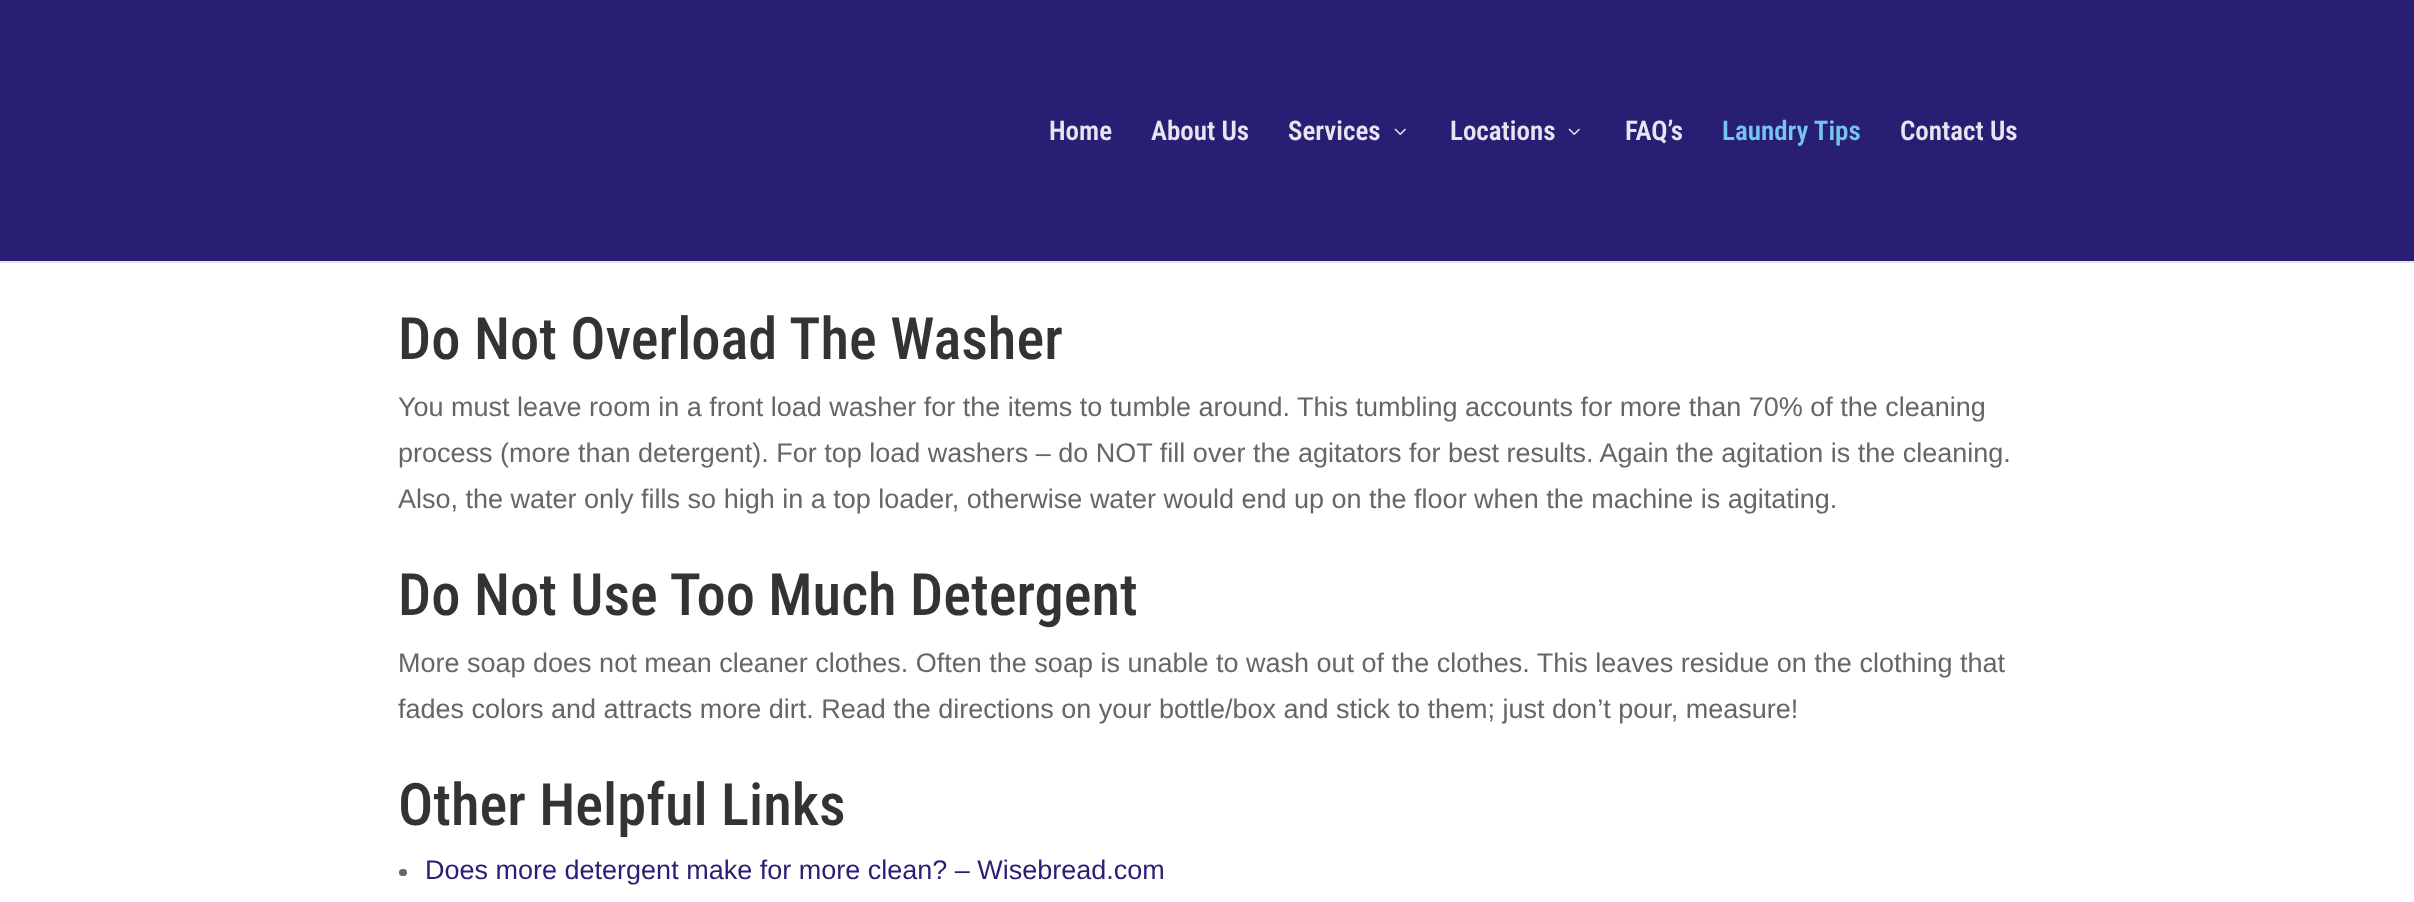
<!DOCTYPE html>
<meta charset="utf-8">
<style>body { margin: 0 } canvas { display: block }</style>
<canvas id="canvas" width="2414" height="902"></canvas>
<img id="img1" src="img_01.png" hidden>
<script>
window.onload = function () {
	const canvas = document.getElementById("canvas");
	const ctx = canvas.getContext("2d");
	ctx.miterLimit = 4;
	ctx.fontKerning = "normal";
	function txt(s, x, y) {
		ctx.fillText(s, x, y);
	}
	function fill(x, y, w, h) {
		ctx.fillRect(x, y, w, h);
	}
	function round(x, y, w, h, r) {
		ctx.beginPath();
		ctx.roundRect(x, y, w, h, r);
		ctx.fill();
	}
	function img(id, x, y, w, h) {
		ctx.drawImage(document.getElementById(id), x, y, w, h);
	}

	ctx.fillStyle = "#FFFFFF";
	fill(0, 0, 2414, 902);
	ctx.fillStyle = "#E6E6E6";
	fill(0, 261, 2414, 2);
	ctx.fillStyle = "#281E74";
	fill(0, 0, 2414, 261);
	img("img1", 1394, 128, 12, 7);
	img("img1", 1568, 128, 12, 7);
	ctx.fillStyle = "#666666";
	round(399, 869, 8, 7, 3.5);
	ctx.font = "600 27px Roboto Condensed";
	ctx.fillStyle = "#E7E6F0";
	txt("Home", 1049, 140);
	txt("About Us", 1151, 140);
	txt("Services", 1288, 140);
	txt("Locations", 1450, 140);
	txt("FAQ’s", 1625, 140);
	ctx.fillStyle = "#76C5F0";
	txt("Laundry Tips", 1722, 140);
	ctx.fillStyle = "#E7E6F0";
	txt("Contact Us", 1900, 140);
	ctx.font = "500 58.5px Roboto Condensed";
	ctx.fillStyle = "#333333";
	txt("Do Not Overload The Washer", 398, 359);
	ctx.font = "27px Liberation Sans";
	ctx.fillStyle = "#666666";
	txt("You must leave room in a front load washer for the items to tumble around. This tumbling accounts for more than 70% of the cleaning", 398, 416);
	txt("process (more than detergent). For top load washers – do NOT fill over the agitators for best results. Again the agitation is the cleaning.", 398, 462);
	txt("Also, the water only fills so high in a top loader, otherwise water would end up on the floor when the machine is agitating.", 398, 508);
	ctx.font = "500 58.5px Roboto Condensed";
	ctx.fillStyle = "#333333";
	txt("Do Not Use Too Much Detergent", 398, 615);
	ctx.font = "27px Liberation Sans";
	ctx.fillStyle = "#666666";
	txt("More soap does not mean cleaner clothes. Often the soap is unable to wash out of the clothes. This leaves residue on the clothing that", 398, 672);
	txt("fades colors and attracts more dirt. Read the directions on your bottle/box and stick to them; just don’t pour, measure!", 398, 718);
	ctx.font = "500 58.5px Roboto Condensed";
	ctx.fillStyle = "#333333";
	txt("Other Helpful Links", 398, 825);
	ctx.font = "27px Liberation Sans";
	ctx.fillStyle = "#281E74";
	txt("Does more detergent make for more clean? – Wisebread.com", 425, 879);
};
</script>
